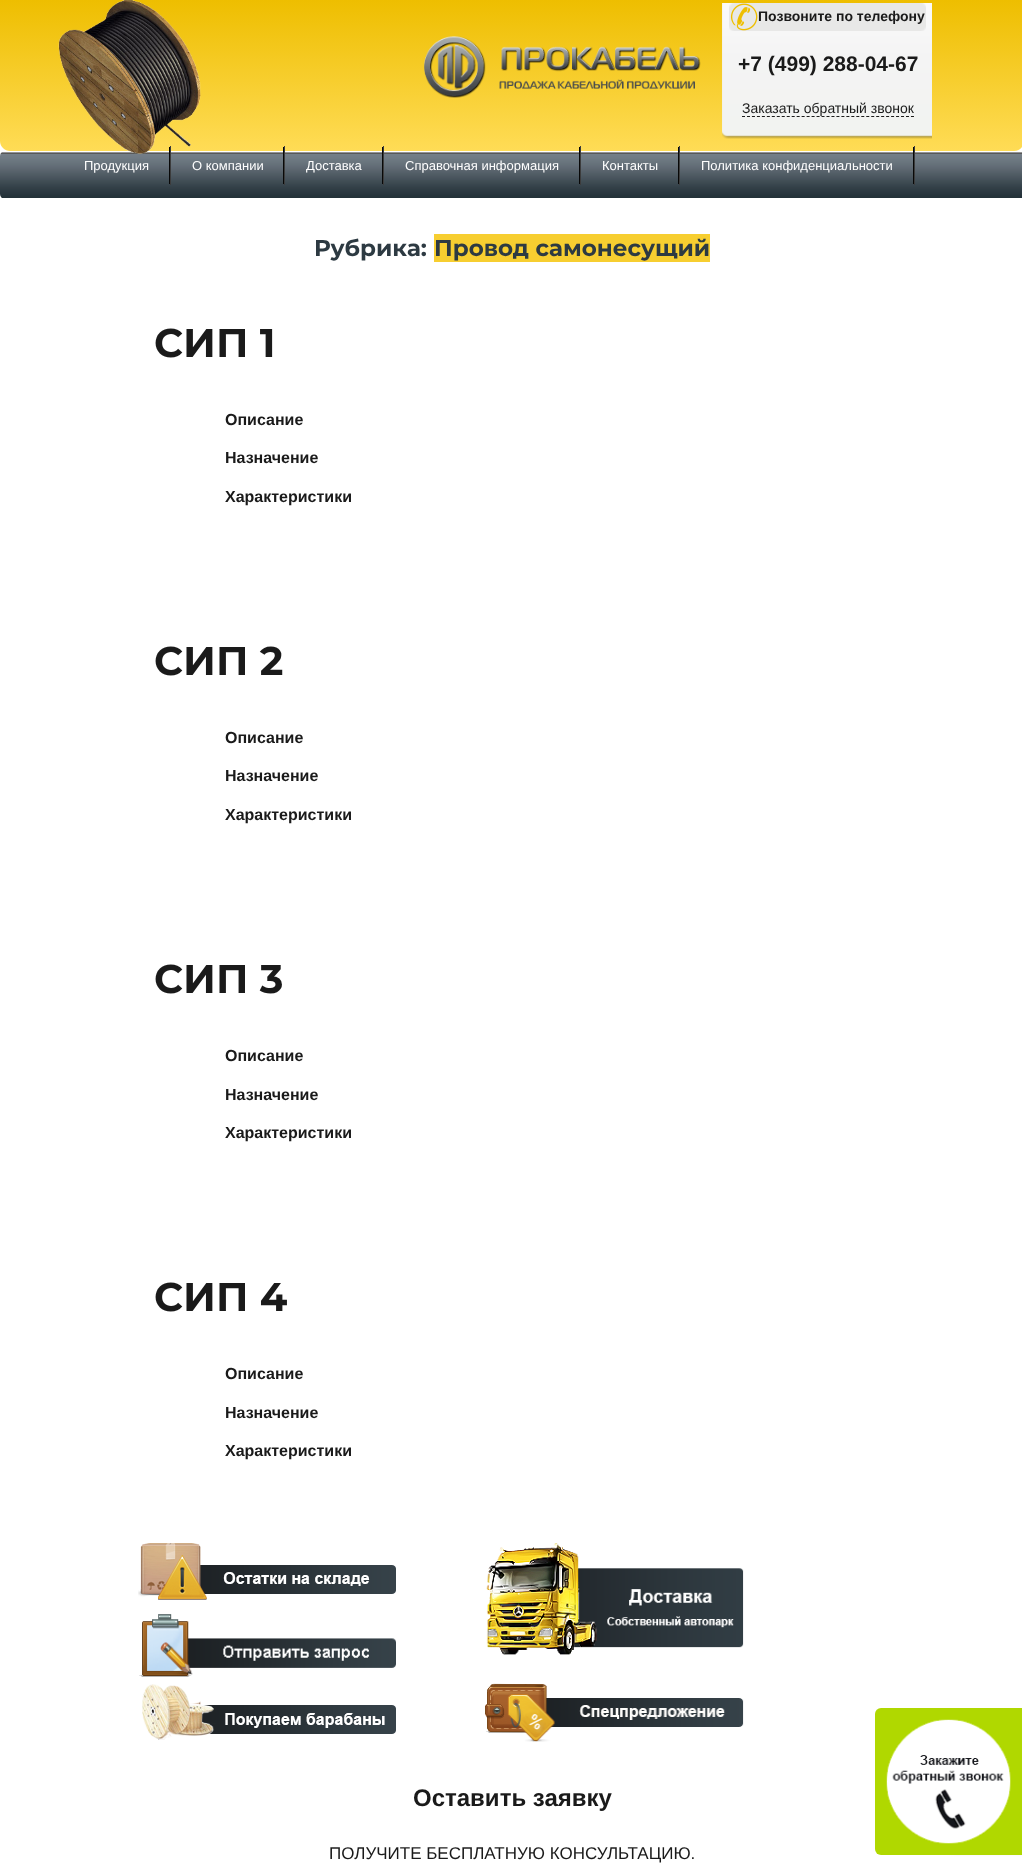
<!DOCTYPE html>
<meta charset="utf-8">
<style>body { margin: 0 } canvas { display: block }</style>
<canvas id="canvas" width="1022" height="1865"></canvas>
<img id="img1" src="img_06.png" hidden>
<img id="img2" src="img_01.png" hidden>
<img id="img3" src="img_02.png" hidden>
<img id="img4" src="img_03.png" hidden>
<img id="img5" src="img_04.png" hidden>
<img id="img6" src="img_05.png" hidden>
<img id="img7" src="img_07.png" hidden>
<img id="img8" src="img_08.png" hidden>
<img id="img9" src="img_09.png" hidden>
<img id="img10" src="img_10.png" hidden>
<img id="img11" src="img_11.png" hidden>
<img id="img12" src="img_12.png" hidden>
<script>
window.onload = function () {
	const canvas = document.getElementById("canvas");
	const ctx = canvas.getContext("2d");
	ctx.miterLimit = 4;
	ctx.fontKerning = "normal";
	function txt(s, x, y) {
		ctx.fillText(s, x, y);
	}
	function fill(x, y, w, h) {
		ctx.fillRect(x, y, w, h);
	}
	function img(id, x, y, w, h) {
		ctx.drawImage(document.getElementById(id), x, y, w, h);
	}
	let gradient;

	ctx.fillStyle = "#FFFFFF";
	fill(0, 0, 1022, 1865);
	gradient = ctx.createLinearGradient(512, 0, 512, 151);
	gradient.addColorStop(0, "#EEBE00");
	gradient.addColorStop(1, "#FFDC56");
	ctx.fillStyle = gradient;
	ctx.beginPath();
	ctx.moveTo(0, 0);
	ctx.lineTo(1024, 0);
	ctx.lineTo(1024, 141);
	ctx.bezierCurveTo(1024, 146.5, 1019.5, 151, 1014, 151);
	ctx.lineTo(10, 151);
	ctx.bezierCurveTo(4.5, 151, 0, 146.5, 0, 141);
	ctx.closePath();
	ctx.fill();
	img("img1", 0, 152, 1022, 46);
	img("img2", 58, 0, 143, 154);
	img("img3", 424, 36, 277, 62);
	img("img4", 722, 3, 210, 136);
	img("img5", 729, 3, 197, 28);
	img("img6", 730, 3, 28, 28);
	ctx.beginPath();
	ctx.moveTo(742, 116.5);
	ctx.lineTo(914, 116.5);
	ctx.strokeStyle = "#1A1A1A";
	ctx.setLineDash([3, 1.97]);
	ctx.stroke();
	ctx.fillStyle = "#080808";
	fill(169, 147, 1, 37);
	ctx.fillStyle = "#3C3C3C";
	fill(170, 146, 1, 39);
	ctx.fillStyle = "#080808";
	fill(283, 147, 1, 37);
	ctx.fillStyle = "#3C3C3C";
	fill(284, 146, 1, 39);
	ctx.fillStyle = "#080808";
	fill(382, 147, 1, 37);
	ctx.fillStyle = "#3C3C3C";
	fill(383, 146, 1, 39);
	ctx.fillStyle = "#080808";
	fill(579, 147, 1, 37);
	ctx.fillStyle = "#3C3C3C";
	fill(580, 146, 1, 39);
	ctx.fillStyle = "#080808";
	fill(678, 147, 1, 37);
	ctx.fillStyle = "#3C3C3C";
	fill(679, 146, 1, 39);
	ctx.fillStyle = "#080808";
	fill(913, 147, 1, 37);
	ctx.fillStyle = "#3C3C3C";
	fill(914, 146, 1, 39);
	ctx.fillStyle = "#F7CE30";
	fill(434, 234, 276, 28);
	ctx.fillStyle = "#808080";
	ctx.filter = "blur(2.5px)";
	ctx.beginPath();
	ctx.roundRect(952, 1791, 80, 60, 2);
	ctx.fill();
	ctx.filter = "none";
	img("img7", 875, 1708, 147, 147);
	img("img8", 138, 1543, 258, 57);
	img("img9", 139, 1614, 257, 63);
	img("img10", 142, 1684, 254, 56);
	img("img11", 486, 1543, 258, 112);
	img("img12", 485, 1683, 259, 59);
	ctx.font = "bold 14px Liberation Sans";
	ctx.fillStyle = "#1A1A1A";
	txt("Позвоните по телефону", 758, 21);
	ctx.font = "bold 21px Liberation Sans";
	txt("+7 (499) 288-04-67", 738, 71);
	ctx.font = "14px Liberation Sans";
	txt("Заказать обратный звонок", 742, 113);
	ctx.font = "13px Liberation Sans";
	ctx.fillStyle = "#FFFFFF";
	txt("Продукция", 84, 170);
	txt("О компании", 192, 170);
	txt("Доставка", 306, 170);
	txt("Справочная информация", 405, 170);
	txt("Контакты", 602, 170);
	txt("Политика конфиденциальности", 701, 170);
	ctx.font = "bold 23px Montserrat";
	ctx.fillStyle = "#2D3A42";
	txt("Рубрика:", 314, 256);
	txt("Провод самонесущий", 434, 256);
	ctx.font = "bold 40px Montserrat";
	ctx.fillStyle = "#1A1A1A";
	txt("СИП 1", 154, 357);
	ctx.font = "bold 16px Liberation Sans";
	txt("Описание", 225, 425);
	txt("Назначение", 225, 463);
	txt("Характеристики", 225, 502);
	ctx.font = "bold 40px Montserrat";
	txt("СИП 2", 154, 675);
	ctx.font = "bold 16px Liberation Sans";
	txt("Описание", 225, 743);
	txt("Назначение", 225, 781);
	txt("Характеристики", 225, 820);
	ctx.font = "bold 40px Montserrat";
	txt("СИП 3", 154, 993);
	ctx.font = "bold 16px Liberation Sans";
	txt("Описание", 225, 1061);
	txt("Назначение", 225, 1100);
	txt("Характеристики", 225, 1138);
	ctx.font = "bold 40px Montserrat";
	txt("СИП 4", 154, 1311);
	ctx.font = "bold 16px Liberation Sans";
	txt("Описание", 225, 1379);
	txt("Назначение", 225, 1418);
	txt("Характеристики", 225, 1456);
	ctx.font = "bold 24px Liberation Sans";
	txt("Оставить заявку", 413, 1806);
	ctx.font = "17px Liberation Sans";
	txt("ПОЛУЧИТЕ БЕСПЛАТНУЮ КОНСУЛЬТАЦИЮ.", 329, 1859);
};
</script>
